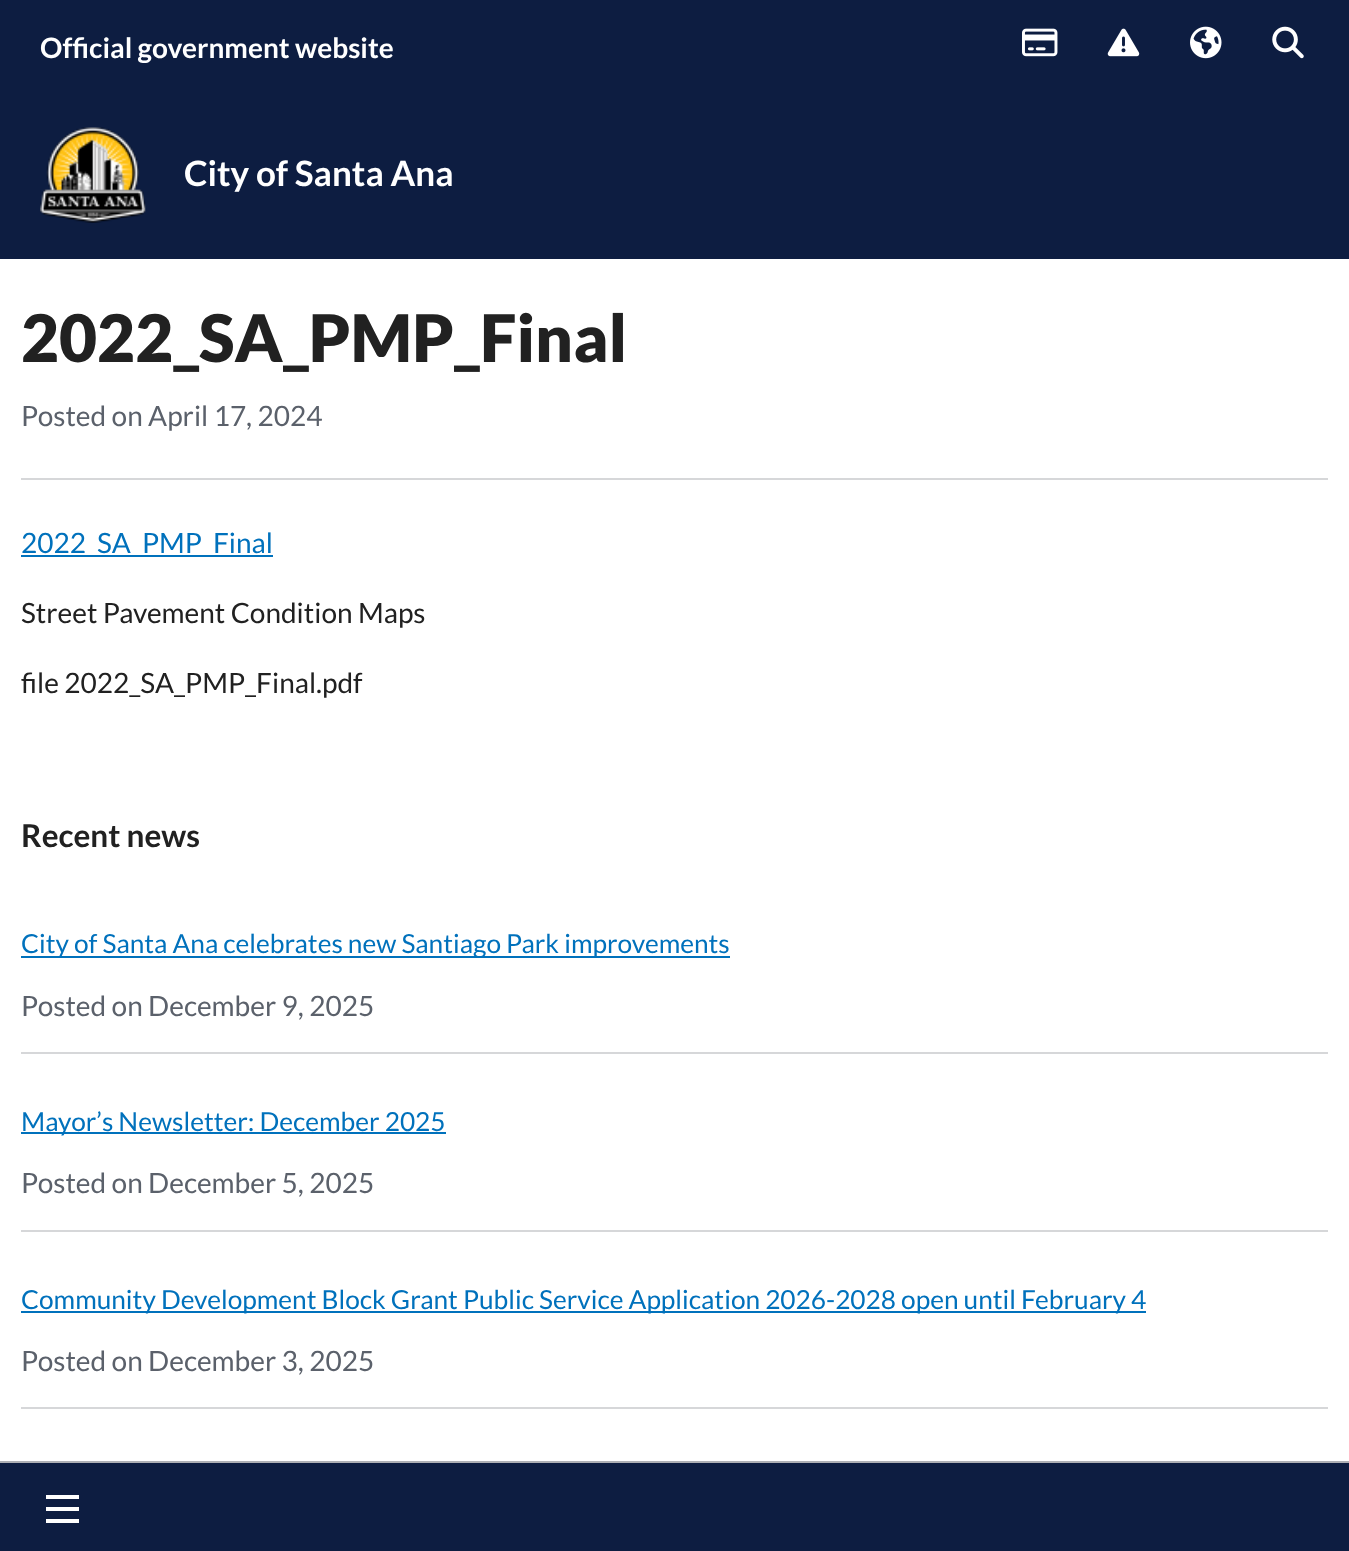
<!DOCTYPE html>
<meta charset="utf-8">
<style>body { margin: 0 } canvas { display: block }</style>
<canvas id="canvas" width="1349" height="1551"></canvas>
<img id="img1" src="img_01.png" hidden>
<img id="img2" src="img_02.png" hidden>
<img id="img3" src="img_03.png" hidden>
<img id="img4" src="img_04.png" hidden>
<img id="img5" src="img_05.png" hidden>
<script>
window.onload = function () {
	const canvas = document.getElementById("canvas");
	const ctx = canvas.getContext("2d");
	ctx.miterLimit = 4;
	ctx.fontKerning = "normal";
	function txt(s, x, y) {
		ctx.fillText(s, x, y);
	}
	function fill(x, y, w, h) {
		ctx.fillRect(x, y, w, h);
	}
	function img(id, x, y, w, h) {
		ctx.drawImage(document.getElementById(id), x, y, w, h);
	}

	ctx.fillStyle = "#FFFFFF";
	fill(0, 0, 1349, 1551);
	ctx.fillStyle = "#0D1D41";
	fill(0, 0, 1349, 259);
	img("img1", 1022, 28, 36, 29);
	img("img2", 1107, 28, 33, 29);
	img("img3", 1190, 26, 32, 33);
	img("img4", 1272, 26, 32, 33);
	img("img5", 40, 127, 106, 96);
	fill(0, 1463, 1349, 88);
	ctx.fillStyle = "#AEB0B5";
	fill(0, 1461, 1349, 2);
	ctx.fillStyle = "#FFFFFF";
	fill(46, 1507, 33, 4);
	fill(46, 1495, 33, 4);
	fill(46, 1519, 33, 4);
	ctx.fillStyle = "#D6D7D9";
	fill(21, 478, 1307, 2);
	ctx.fillStyle = "#0071BC";
	fill(21, 555, 252, 2);
	fill(21, 956, 709, 2);
	ctx.fillStyle = "#D6D7D9";
	fill(21, 1052, 1307, 2);
	ctx.fillStyle = "#0071BC";
	fill(21, 1132, 425, 2);
	ctx.fillStyle = "#D6D7D9";
	fill(21, 1230, 1307, 2);
	ctx.fillStyle = "#0071BC";
	fill(21, 1311, 1125, 2);
	ctx.fillStyle = "#D6D7D9";
	fill(21, 1407, 1307, 2);
	ctx.font = "bold 28px Lato";
	ctx.fillStyle = "#FFFFFF";
	txt("Official government website", 40, 58);
	ctx.font = "bold 35px Lato";
	txt("City of Santa Ana", 184, 186);
	ctx.font = "900 65.6px Lato";
	ctx.fillStyle = "#212121";
	txt("2022_SA_PMP_Final", 21, 362);
	ctx.font = "28px Lato";
	ctx.fillStyle = "#5B616B";
	txt("Posted on April 17, 2024", 21, 426);
	ctx.fillStyle = "#0071BC";
	txt("2022_SA_PMP_Final", 21, 553);
	ctx.fillStyle = "#212121";
	txt("Street Pavement Condition Maps", 21, 623);
	txt("file 2022_SA_PMP_Final.pdf", 21, 693);
	ctx.font = "bold 31.5px Lato";
	txt("Recent news", 21, 847);
	ctx.font = "26.25px Lato";
	ctx.fillStyle = "#0071BC";
	txt("City of Santa Ana celebrates new Santiago Park improvements", 21, 953);
	ctx.font = "28px Lato";
	ctx.fillStyle = "#5B616B";
	txt("Posted on December 9, 2025", 21, 1016);
	ctx.font = "26.25px Lato";
	ctx.fillStyle = "#0071BC";
	txt("Mayor’s Newsletter: December 2025", 21, 1131);
	ctx.font = "28px Lato";
	ctx.fillStyle = "#5B616B";
	txt("Posted on December 5, 2025", 21, 1193);
	ctx.font = "26.25px Lato";
	ctx.fillStyle = "#0071BC";
	txt("Community Development Block Grant Public Service Application 2026-2028 open until February 4", 21, 1309);
	ctx.font = "28px Lato";
	ctx.fillStyle = "#5B616B";
	txt("Posted on December 3, 2025", 21, 1371);
};
</script>
